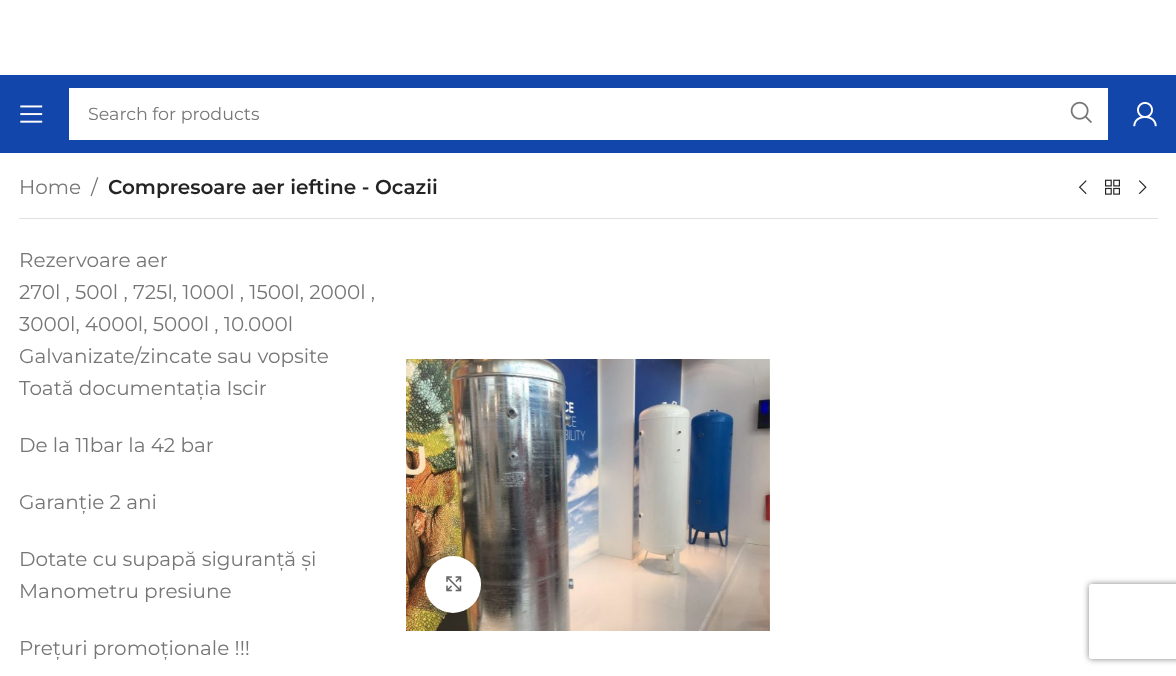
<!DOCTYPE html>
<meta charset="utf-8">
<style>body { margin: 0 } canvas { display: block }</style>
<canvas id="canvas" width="1176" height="676"></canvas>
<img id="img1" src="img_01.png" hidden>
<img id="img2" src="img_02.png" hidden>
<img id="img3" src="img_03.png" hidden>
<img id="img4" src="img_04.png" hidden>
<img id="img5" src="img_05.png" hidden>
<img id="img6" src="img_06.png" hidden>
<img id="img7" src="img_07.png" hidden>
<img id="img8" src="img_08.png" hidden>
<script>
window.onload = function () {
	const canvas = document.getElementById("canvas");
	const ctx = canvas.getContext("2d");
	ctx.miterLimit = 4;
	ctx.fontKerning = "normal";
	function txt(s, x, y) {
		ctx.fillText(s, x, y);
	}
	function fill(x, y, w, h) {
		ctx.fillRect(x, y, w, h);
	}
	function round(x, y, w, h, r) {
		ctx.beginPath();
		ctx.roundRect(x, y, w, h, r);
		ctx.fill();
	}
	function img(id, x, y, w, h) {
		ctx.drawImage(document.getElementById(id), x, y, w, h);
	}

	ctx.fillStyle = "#FFFFFF";
	fill(0, 0, 1176, 676);
	ctx.fillStyle = "#1246AB";
	fill(0, 75, 1176, 78);
	img("img1", 20, 105, 23, 18);
	ctx.fillStyle = "#FFFFFF";
	fill(69, 88, 1039, 52);
	img("img2", 1070, 101, 22, 22);
	img("img3", 1133, 102, 24, 25);
	img("img4", 1078, 180, 9, 15);
	img("img5", 1105, 179, 15, 16);
	img("img6", 1138, 180, 9, 15);
	ctx.fillStyle = "#E0E0E0";
	fill(19, 218, 1139, 1);
	img("img7", 406, 359, 364, 272);
	ctx.fillStyle = "rgba(0, 0, 0, 0.08)";
	ctx.filter = "blur(3px)";
	ctx.beginPath();
	ctx.roundRect(425, 556, 56, 57, 28);
	ctx.fill();
	ctx.filter = "none";
	ctx.fillStyle = "#FFFFFF";
	round(425, 556, 56, 57, 28);
	img("img8", 446, 576, 16, 16);
	ctx.save();
	ctx.beginPath();
	ctx.moveTo(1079, 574);
	ctx.lineTo(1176, 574);
	ctx.lineTo(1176, 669);
	ctx.lineTo(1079, 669);
	ctx.closePath();
	ctx.moveTo(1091.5, 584);
	ctx.lineTo(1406.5, 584);
	ctx.bezierCurveTo(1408, 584, 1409, 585, 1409, 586.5);
	ctx.lineTo(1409, 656.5);
	ctx.bezierCurveTo(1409, 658, 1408, 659, 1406.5, 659);
	ctx.lineTo(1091.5, 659);
	ctx.bezierCurveTo(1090, 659, 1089, 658, 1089, 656.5);
	ctx.lineTo(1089, 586.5);
	ctx.bezierCurveTo(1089, 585, 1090, 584, 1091.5, 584);
	ctx.closePath();
	ctx.clip("evenodd");
	ctx.fillStyle = "#808080";
	ctx.filter = "blur(3px)";
	ctx.beginPath();
	ctx.roundRect(1089, 584, 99, 75, 2.5);
	ctx.fill();
	ctx.filter = "none";
	ctx.restore();
	ctx.font = "17.5px Montserrat";
	ctx.fillStyle = "#767676";
	txt("Search for products", 88, 120);
	ctx.font = "20px Montserrat";
	txt("Home", 19, 194);
	txt("/", 91, 194);
	ctx.font = "600 20px Montserrat";
	ctx.fillStyle = "#242424";
	txt("Compresoare aer ieftine - Ocazii", 108, 194);
	ctx.font = "20px Montserrat";
	ctx.fillStyle = "#767676";
	txt("Rezervoare aer", 19, 267);
	txt("270l , 500l , 725l, 1000l , 1500l, 2000l ,", 19, 299);
	txt("3000l, 4000l, 5000l , 10.000l", 19, 331);
	txt("Galvanizate/zincate sau vopsite", 19, 363);
	txt("Toată documentația Iscir", 19, 395);
	txt("De la 11bar la 42 bar", 19, 452);
	txt("Garanție 2 ani", 19, 509);
	txt("Dotate cu supapă siguranță și", 19, 566);
	txt("Manometru presiune", 19, 598);
	txt("Prețuri promoționale !!!", 19, 655);
};
</script>
